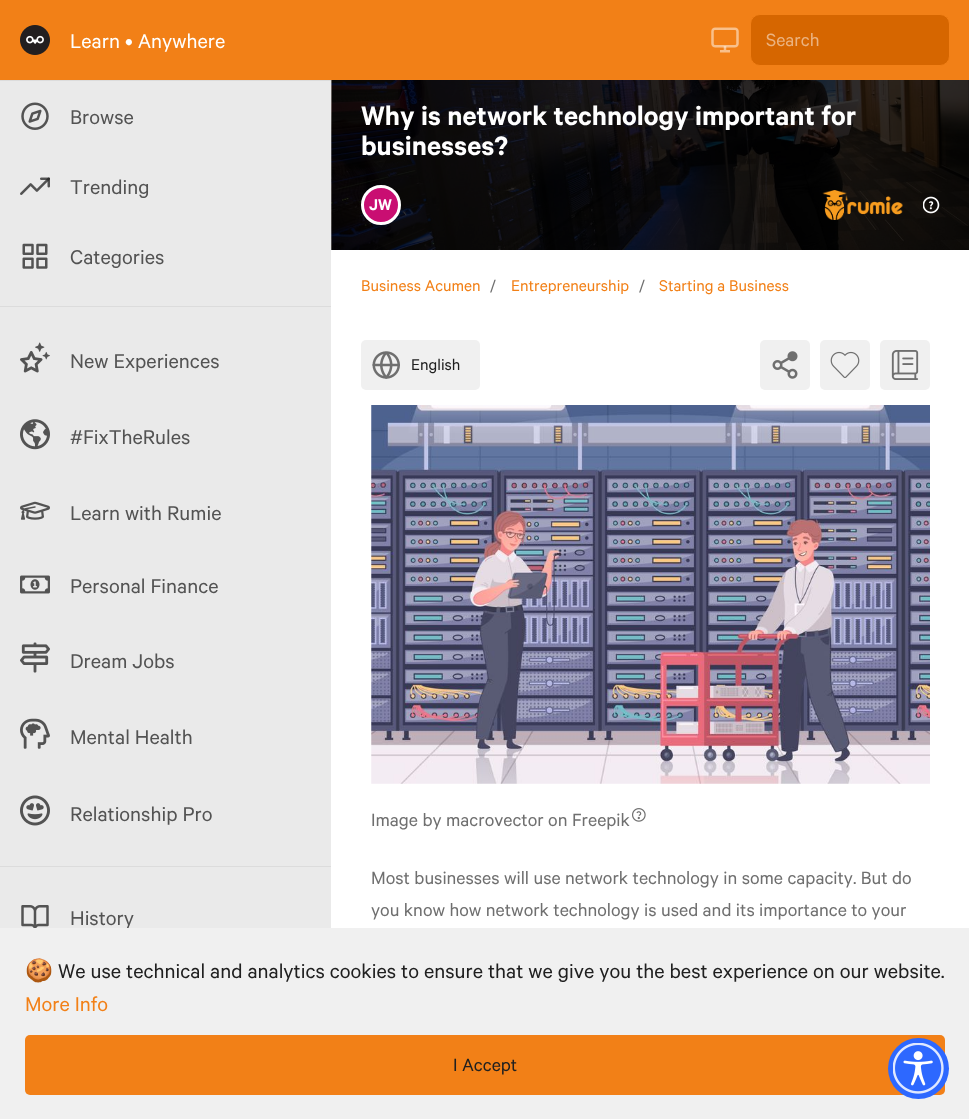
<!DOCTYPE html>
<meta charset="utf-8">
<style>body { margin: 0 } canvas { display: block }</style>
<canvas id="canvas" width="969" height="1119"></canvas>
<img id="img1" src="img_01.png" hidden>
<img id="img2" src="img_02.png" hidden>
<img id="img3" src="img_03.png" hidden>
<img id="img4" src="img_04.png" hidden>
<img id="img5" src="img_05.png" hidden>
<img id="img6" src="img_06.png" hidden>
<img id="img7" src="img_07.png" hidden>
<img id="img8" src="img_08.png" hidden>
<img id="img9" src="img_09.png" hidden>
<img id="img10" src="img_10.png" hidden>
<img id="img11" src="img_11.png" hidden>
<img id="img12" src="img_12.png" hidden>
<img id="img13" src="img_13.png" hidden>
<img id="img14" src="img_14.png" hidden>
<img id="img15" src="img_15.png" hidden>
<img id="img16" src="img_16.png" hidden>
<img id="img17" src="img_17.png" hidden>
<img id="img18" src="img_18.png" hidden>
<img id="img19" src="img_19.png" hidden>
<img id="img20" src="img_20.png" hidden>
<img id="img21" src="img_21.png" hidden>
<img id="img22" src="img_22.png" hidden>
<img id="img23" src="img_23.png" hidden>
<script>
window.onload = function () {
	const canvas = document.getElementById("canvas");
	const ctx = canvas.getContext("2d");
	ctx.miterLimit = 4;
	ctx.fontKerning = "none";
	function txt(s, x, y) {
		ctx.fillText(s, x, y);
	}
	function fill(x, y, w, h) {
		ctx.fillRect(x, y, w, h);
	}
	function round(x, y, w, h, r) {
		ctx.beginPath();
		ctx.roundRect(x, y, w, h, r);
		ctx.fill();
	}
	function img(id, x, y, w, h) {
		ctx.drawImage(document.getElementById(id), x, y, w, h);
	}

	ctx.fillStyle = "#FFFFFF";
	fill(0, 0, 969, 1119);
	ctx.fillStyle = "#F28017";
	fill(0, 0, 969, 80);
	img("img1", 20, 25, 30, 30);
	img("img2", 711, 27, 28, 26);
	ctx.fillStyle = "#D66600";
	ctx.beginPath();
	ctx.roundRect(750.5, 14.5, 199, 51, 9.5);
	ctx.fill();
	ctx.strokeStyle = "#F28017";
	ctx.stroke();
	ctx.fillStyle = "#EAEAEA";
	fill(0, 81, 331, 847);
	ctx.fillStyle = "#DCDCDC";
	fill(0, 80, 331, 1);
	img("img3", 21, 102, 28, 28);
	img("img4", 20, 177, 30, 18);
	img("img5", 22, 243, 26, 26);
	fill(0, 306, 331, 1);
	img("img6", 20, 342, 30, 31);
	img("img7", 20, 419, 30, 31);
	img("img8", 20, 501, 30, 19);
	img("img9", 20, 575, 30, 19);
	img("img10", 20, 642, 30, 31);
	img("img11", 20, 718, 30, 31);
	img("img12", 20, 795, 30, 31);
	fill(0, 866, 331, 1);
	img("img13", 21, 905, 28, 23);
	img("img14", 331, 80, 638, 170);
	ctx.fillStyle = "#C90E72";
	ctx.beginPath();
	ctx.arc(381, 205, 18.5, 0, Math.PI * 2);
	ctx.fill();
	ctx.strokeStyle = "#FFFFFF";
	ctx.lineWidth = 3;
	ctx.stroke();
	img("img15", 822, 190, 81, 30);
	img("img16", 923, 196, 17, 18);
	ctx.fillStyle = "#F0F0F0";
	round(361, 340, 119, 50, 5);
	img("img17", 372, 351, 28, 28);
	round(760, 340, 50, 50, 5);
	img("img18", 772, 351, 26, 28);
	round(820, 340, 50, 50, 5);
	img("img19", 830, 351, 30, 27);
	round(880, 340, 50, 50, 5);
	img("img20", 891, 350, 28, 30);
	img("img21", 371, 405, 559, 379);
	img("img22", 632, 808, 14, 14);
	ctx.font = "22.5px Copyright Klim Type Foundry";
	ctx.fillStyle = "#FFFFFF";
	txt("Learn • Anywhere", 70, 48);
	ctx.font = "20px Copyright Klim Type Foundry";
	ctx.fillStyle = "#EBB380";
	txt("Search", 766, 46);
	ctx.font = "22.5px Copyright Klim Type Foundry";
	ctx.fillStyle = "#535353";
	txt("Browse", 70, 124);
	txt("Trending", 70, 194);
	txt("Categories", 70, 264);
	txt("New Experiences", 70, 368);
	txt("#FixTheRules", 70, 444);
	txt("Learn with Rumie", 70, 520);
	txt("Personal Finance", 70, 593);
	txt("Dream Jobs", 70, 668);
	txt("Mental Health", 70, 744);
	txt("Relationship Pro", 70, 821);
	txt("History", 70, 925);
	ctx.font = "600 30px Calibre";
	ctx.fillStyle = "#FFFFFF";
	txt("Why is network technology important for", 361, 125);
	txt("businesses?", 361, 155);
	ctx.font = "600 17.5px Calibre";
	txt("JW", 369, 210);
	ctx.font = "17.5px Copyright Klim Type Foundry";
	ctx.fillStyle = "#F28017";
	txt("Business Acumen", 361, 291);
	ctx.fillStyle = "#6F6F6F";
	txt("/", 490, 291);
	ctx.fillStyle = "#F28017";
	txt("Entrepreneurship", 511, 291);
	ctx.fillStyle = "#6F6F6F";
	txt("/", 639, 291);
	ctx.fillStyle = "#F28017";
	txt("Starting a Business", 659, 291);
	ctx.fillStyle = "#202020";
	txt("English", 411, 370);
	ctx.font = "20px Copyright Klim Type Foundry";
	ctx.fillStyle = "#6F6F6F";
	txt("Image by macrovector on Freepik", 371, 826);
	txt("Most businesses will use network technology in some capacity. But do", 371, 884);
	txt("you know how network technology is used and its importance to your", 371, 916);
	ctx.fillStyle = "#F0F0F0";
	fill(0, 928, 969, 191);
	ctx.font = "22.5px Noto Color Emoji";
	ctx.fillStyle = "#202020";
	txt("🍪", 25, 978);
	ctx.font = "22.5px Copyright Klim Type Foundry";
	txt("We use technical and analytics cookies to ensure that we give you the best experience on our website.", 58, 978);
	ctx.fillStyle = "#F28017";
	txt("More Info", 25, 1011);
	round(25, 1035, 920, 60, 5);
	ctx.font = "20px Copyright Klim Type Foundry";
	ctx.fillStyle = "#202020";
	txt("I Accept", 453, 1071);
	ctx.fillStyle = "#2D68FF";
	ctx.beginPath();
	ctx.arc(918.5, 1068.5, 30.5, 0, Math.PI * 2);
	ctx.fill();
	img("img23", 893, 1043, 51, 51);
};
</script>
